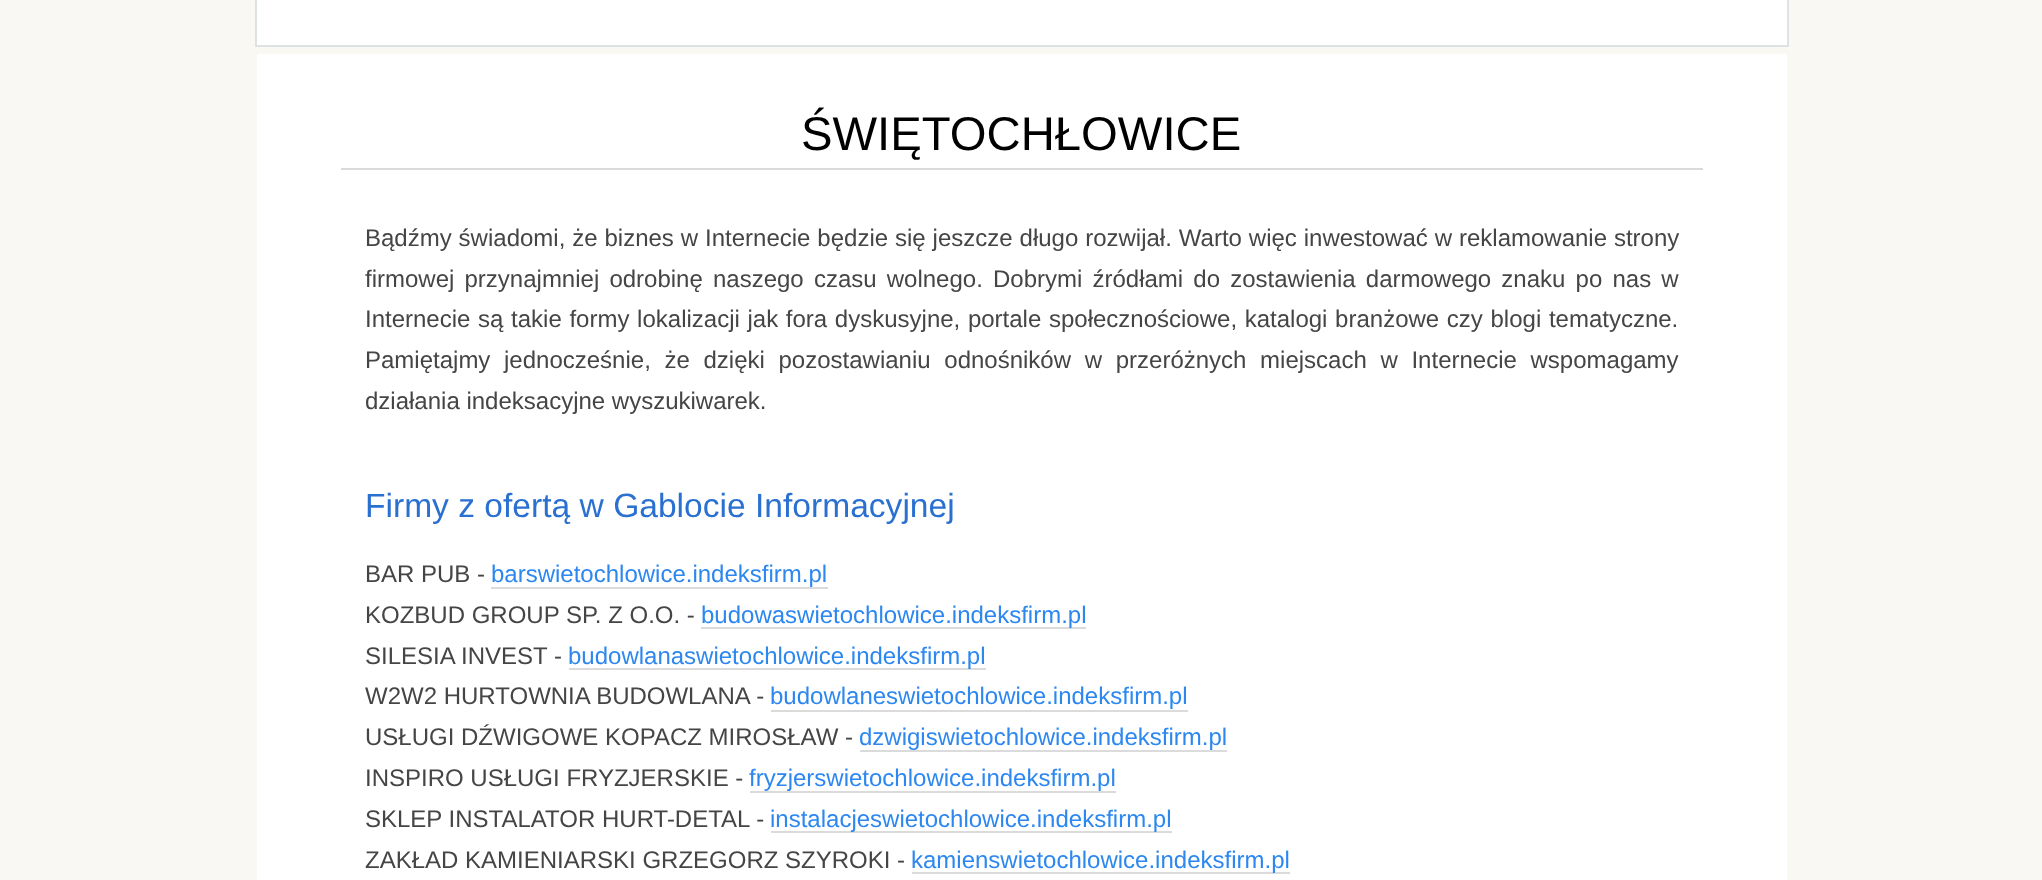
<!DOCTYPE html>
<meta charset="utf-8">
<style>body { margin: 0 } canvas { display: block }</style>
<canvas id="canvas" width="2042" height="880"></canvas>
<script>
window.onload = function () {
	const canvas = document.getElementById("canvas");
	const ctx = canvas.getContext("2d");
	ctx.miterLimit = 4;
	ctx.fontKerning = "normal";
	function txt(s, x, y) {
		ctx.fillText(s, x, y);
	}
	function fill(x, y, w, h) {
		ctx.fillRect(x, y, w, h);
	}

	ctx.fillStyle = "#F9F8F3";
	fill(0, 0, 2042, 880);
	ctx.fillStyle = "#FFFFFF";
	fill(257, 0, 1530, 45);
	ctx.fillStyle = "#DDE2E5";
	fill(1787, 0, 2, 47);
	fill(255, 45, 1533, 2);
	fill(255, 0, 2, 47);
	ctx.fillStyle = "#FFFFFF";
	fill(257, 54, 1530, 826);
	ctx.fillStyle = "#DADADA";
	fill(341, 168, 1362, 2);
	ctx.fillStyle = "#DBDBDB";
	fill(491, 587, 337, 2);
	fill(701, 627, 385, 2);
	fill(569, 668, 417, 2);
	fill(771, 710, 417, 2);
	fill(860, 750, 367, 2);
	fill(750, 791, 366, 2);
	fill(771, 831, 401, 2);
	fill(912, 872, 378, 2);
	ctx.font = "47.25px Liberation Sans";
	ctx.fillStyle = "#000000";
	txt("ŚWIĘTOCHŁOWICE", 801, 150);
	ctx.wordSpacing = "0.25px";
	ctx.font = "24px Liberation Sans";
	ctx.fillStyle = "#454545";
	txt("Bądźmy świadomi, że biznes w Internecie będzie się jeszcze długo rozwijał. Warto więc inwestować w reklamowanie strony", 365, 246);
	ctx.wordSpacing = "3.5px";
	txt("firmowej przynajmniej odrobinę naszego czasu wolnego. Dobrymi źródłami do zostawienia darmowego znaku po nas w", 365, 287);
	ctx.wordSpacing = "1px";
	txt("Internecie są takie formy lokalizacji jak fora dyskusyjne, portale społecznościowe, katalogi branżowe czy blogi tematyczne.", 365, 327);
	ctx.wordSpacing = "7px";
	txt("Pamiętajmy jednocześnie, że dzięki pozostawianiu odnośników w przeróżnych miejscach w Internecie wspomagamy", 365, 368);
	ctx.wordSpacing = "0px";
	txt("działania indeksacyjne wyszukiwarek.", 365, 409);
	ctx.font = "33.6px Liberation Sans";
	ctx.fillStyle = "#2A70D0";
	txt("Firmy z ofertą w Gablocie Informacyjnej", 365, 517);
	ctx.font = "24px Liberation Sans";
	ctx.fillStyle = "#454545";
	txt("BAR PUB -", 365, 582);
	ctx.fillStyle = "#2C87F0";
	txt("barswietochlowice.indeksfirm.pl", 491, 582);
	ctx.fillStyle = "#454545";
	txt("KOZBUD GROUP SP. Z O.O. -", 365, 623);
	ctx.fillStyle = "#2C87F0";
	txt("budowaswietochlowice.indeksfirm.pl", 701, 623);
	ctx.fillStyle = "#454545";
	txt("SILESIA INVEST -", 365, 664);
	ctx.fillStyle = "#2C87F0";
	txt("budowlanaswietochlowice.indeksfirm.pl", 568, 664);
	ctx.fillStyle = "#454545";
	txt("W2W2 HURTOWNIA BUDOWLANA -", 365, 704);
	ctx.fillStyle = "#2C87F0";
	txt("budowlaneswietochlowice.indeksfirm.pl", 770, 704);
	ctx.fillStyle = "#454545";
	txt("USŁUGI DŹWIGOWE KOPACZ MIROSŁAW -", 365, 745);
	ctx.fillStyle = "#2C87F0";
	txt("dzwigiswietochlowice.indeksfirm.pl", 859, 745);
	ctx.fillStyle = "#454545";
	txt("INSPIRO USŁUGI FRYZJERSKIE -", 365, 786);
	ctx.fillStyle = "#2C87F0";
	txt("fryzjerswietochlowice.indeksfirm.pl", 749, 786);
	ctx.fillStyle = "#454545";
	txt("SKLEP INSTALATOR HURT-DETAL -", 365, 827);
	ctx.fillStyle = "#2C87F0";
	txt("instalacjeswietochlowice.indeksfirm.pl", 770, 827);
	ctx.fillStyle = "#454545";
	txt("ZAKŁAD KAMIENIARSKI GRZEGORZ SZYROKI -", 365, 868);
	ctx.fillStyle = "#2C87F0";
	txt("kamienswietochlowice.indeksfirm.pl", 911, 868);
};
</script>
